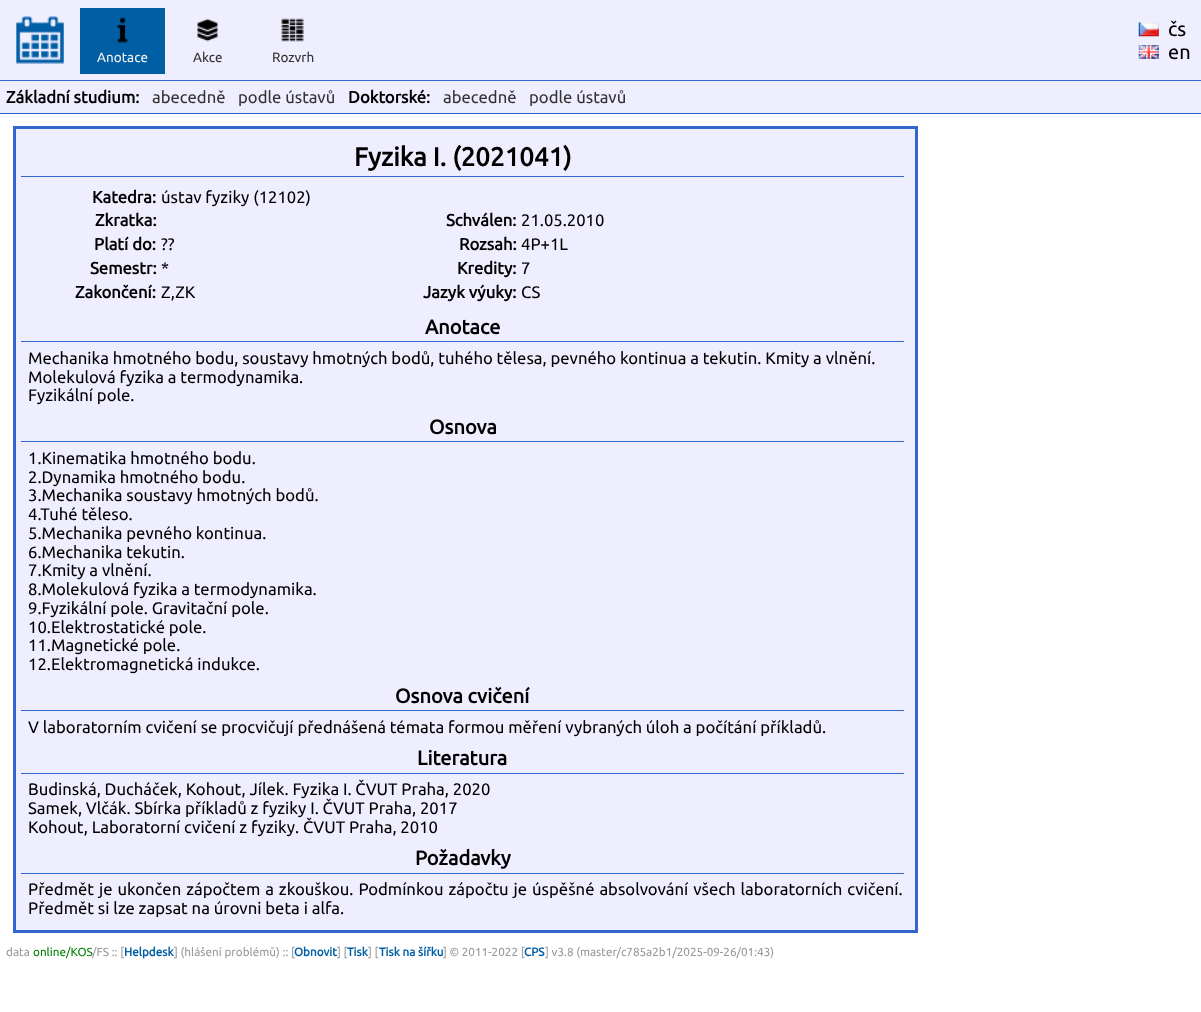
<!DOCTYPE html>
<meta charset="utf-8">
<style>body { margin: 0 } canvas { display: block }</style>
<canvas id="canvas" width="1201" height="1012"></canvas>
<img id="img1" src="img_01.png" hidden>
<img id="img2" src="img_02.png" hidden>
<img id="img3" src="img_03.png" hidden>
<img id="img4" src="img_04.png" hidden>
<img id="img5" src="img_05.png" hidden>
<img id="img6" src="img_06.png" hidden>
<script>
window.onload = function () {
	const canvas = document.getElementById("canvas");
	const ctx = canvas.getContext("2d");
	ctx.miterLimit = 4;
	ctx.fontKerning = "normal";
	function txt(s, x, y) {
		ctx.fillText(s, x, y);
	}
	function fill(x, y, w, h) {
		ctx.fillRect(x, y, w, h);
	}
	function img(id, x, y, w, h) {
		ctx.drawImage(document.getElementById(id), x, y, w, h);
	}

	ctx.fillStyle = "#FFFFFF";
	fill(0, 0, 1201, 1012);
	ctx.fillStyle = "#EEEEFF";
	fill(0, 0, 1201, 80);
	ctx.fillStyle = "#3366CC";
	fill(0, 80, 1201, 1);
	img("img1", 16, 16, 48, 48);
	ctx.fillStyle = "#005EA5";
	fill(80, 8, 85, 66);
	img("img2", 117, 17, 11, 26);
	img("img3", 197, 18, 21, 24);
	img("img4", 281, 18, 23, 24);
	img("img5", 1138, 22, 21, 15);
	img("img6", 1138, 45, 21, 14);
	ctx.fillStyle = "#EEEEFF";
	fill(0, 81, 1201, 32);
	ctx.fillStyle = "#3366CC";
	fill(0, 113, 1201, 1);
	ctx.fillStyle = "#EEEEFF";
	ctx.beginPath();
	ctx.rect(14.5, 127.5, 902, 804);
	ctx.fill();
	ctx.strokeStyle = "#3366CC";
	ctx.lineWidth = 3;
	ctx.stroke();
	ctx.fillStyle = "#3366CC";
	fill(21, 176, 883, 1);
	fill(21, 341, 883, 1);
	fill(21, 441, 883, 1);
	fill(21, 710, 883, 1);
	fill(21, 773, 883, 1);
	fill(21, 873, 883, 1);
	ctx.font = "13.5px Ubuntu";
	ctx.fillStyle = "#EEEEEE";
	txt("Anotace", 97, 62);
	ctx.fillStyle = "#333333";
	txt("Akce", 193, 62);
	txt("Rozvrh", 272, 62);
	ctx.font = "20px Ubuntu";
	ctx.fillStyle = "#000000";
	txt("čs", 1168, 36);
	txt("en", 1168, 59);
	ctx.font = "bold 16.67px Ubuntu";
	txt("Základní studium:", 6, 103);
	ctx.font = "16.67px Ubuntu";
	ctx.fillStyle = "#333333";
	txt("abecedně", 152, 103);
	txt("podle ústavů", 238, 103);
	ctx.font = "bold 16.67px Ubuntu";
	ctx.fillStyle = "#000000";
	txt("Doktorské:", 348, 103);
	ctx.font = "16.67px Ubuntu";
	ctx.fillStyle = "#333333";
	txt("abecedně", 443, 103);
	txt("podle ústavů", 529, 103);
	ctx.font = "bold 26px Ubuntu";
	ctx.fillStyle = "#000000";
	txt("Fyzika I. (2021041)", 354, 166);
	ctx.font = "bold 16.67px Ubuntu";
	txt("Katedra:", 92, 203);
	ctx.font = "16.67px Ubuntu";
	txt("ústav fyziky (12102)", 161, 203);
	ctx.font = "bold 16.67px Ubuntu";
	txt("Zkratka:", 95, 226);
	txt("Schválen:", 446, 226);
	ctx.font = "16.67px Ubuntu";
	txt("21.05.2010", 521, 226);
	ctx.font = "bold 16.67px Ubuntu";
	txt("Platí do:", 94, 250);
	ctx.font = "16.67px Ubuntu";
	txt("??", 161, 250);
	ctx.font = "bold 16.67px Ubuntu";
	txt("Rozsah:", 459, 250);
	ctx.font = "16.67px Ubuntu";
	txt("4P+1L", 521, 250);
	ctx.font = "bold 16.67px Ubuntu";
	txt("Semestr:", 90, 274);
	ctx.font = "16.67px Ubuntu";
	txt("*", 161, 274);
	ctx.font = "bold 16.67px Ubuntu";
	txt("Kredity:", 457, 274);
	ctx.font = "16.67px Ubuntu";
	txt("7", 521, 274);
	ctx.font = "bold 16.67px Ubuntu";
	txt("Zakončení:", 75, 298);
	ctx.font = "16.67px Ubuntu";
	txt("Z,ZK", 161, 298);
	ctx.font = "bold 16.67px Ubuntu";
	txt("Jazyk výuky:", 423, 298);
	ctx.font = "16.67px Ubuntu";
	txt("CS", 521, 298);
	ctx.font = "bold 20px Ubuntu";
	txt("Anotace", 425, 334);
	ctx.font = "16.67px Ubuntu";
	txt("Mechanika hmotného bodu, soustavy hmotných bodů, tuhého tělesa, pevného kontinua a tekutin. Kmity a vlnění.", 28, 364);
	txt("Molekulová fyzika a termodynamika.", 28, 383);
	txt("Fyzikální pole.", 28, 401);
	ctx.font = "bold 20px Ubuntu";
	txt("Osnova", 429, 434);
	ctx.font = "16.67px Ubuntu";
	txt("1.Kinematika hmotného bodu.", 28, 464);
	txt("2.Dynamika hmotného bodu.", 28, 483);
	txt("3.Mechanika soustavy hmotných bodů.", 28, 501);
	txt("4.Tuhé těleso.", 28, 520);
	txt("5.Mechanika pevného kontinua.", 28, 539);
	txt("6.Mechanika tekutin.", 28, 558);
	txt("7.Kmity a vlnění.", 28, 576);
	txt("8.Molekulová fyzika a termodynamika.", 28, 595);
	txt("9.Fyzikální pole. Gravitační pole.", 28, 614);
	txt("10.Elektrostatické pole.", 28, 633);
	txt("11.Magnetické pole.", 28, 651);
	txt("12.Elektromagnetická indukce.", 28, 670);
	ctx.font = "bold 20px Ubuntu";
	txt("Osnova cvičení", 395, 703);
	ctx.font = "16.67px Ubuntu";
	txt("V laboratorním cvičení se procvičují přednášená témata formou měření vybraných úloh a počítání příkladů.", 28, 733);
	ctx.font = "bold 20px Ubuntu";
	txt("Literatura", 417, 765);
	ctx.font = "16.67px Ubuntu";
	txt("Budinská, Ducháček, Kohout, Jílek. Fyzika I. ČVUT Praha, 2020", 28, 795);
	txt("Samek, Vlčák. Sbírka příkladů z fyziky I. ČVUT Praha, 2017", 28, 814);
	txt("Kohout, Laboratorní cvičení z fyziky. ČVUT Praha, 2010", 28, 833);
	ctx.font = "bold 20px Ubuntu";
	txt("Požadavky", 415, 865);
	ctx.wordSpacing = "1.1px";
	ctx.font = "16.67px Ubuntu";
	txt("Předmět je ukončen zápočtem a zkouškou. Podmínkou zápočtu je úspěšné absolvování všech laboratorních cvičení.", 28, 895);
	ctx.wordSpacing = "0px";
	txt("Předmět si lze zapsat na úrovni beta i alfa.", 28, 914);
	ctx.font = "11.7px Ubuntu";
	ctx.fillStyle = "#999999";
	txt("data", 6, 956);
	ctx.fillStyle = "#008000";
	txt("online/KOS", 33, 956);
	ctx.fillStyle = "#999999";
	txt("/FS :: [", 92, 956);
	ctx.font = "bold 11.7px Ubuntu";
	ctx.fillStyle = "#005EA5";
	txt("Helpdesk", 124, 956);
	ctx.font = "11.7px Ubuntu";
	ctx.fillStyle = "#999999";
	txt("] (hlášení problémů) :: [", 174, 956);
	ctx.font = "bold 11.7px Ubuntu";
	ctx.fillStyle = "#005EA5";
	txt("Obnovit", 294, 956);
	ctx.font = "11.7px Ubuntu";
	ctx.fillStyle = "#999999";
	txt("] [", 337, 956);
	ctx.font = "bold 11.7px Ubuntu";
	ctx.fillStyle = "#005EA5";
	txt("Tisk", 347, 956);
	ctx.font = "11.7px Ubuntu";
	ctx.fillStyle = "#999999";
	txt("] [", 368, 956);
	ctx.font = "bold 11.7px Ubuntu";
	ctx.fillStyle = "#005EA5";
	txt("Tisk na šířku", 379, 956);
	ctx.font = "11.7px Ubuntu";
	ctx.fillStyle = "#999999";
	txt("] © 2011-2022 [", 443, 956);
	ctx.font = "bold 11.7px Ubuntu";
	ctx.fillStyle = "#005EA5";
	txt("CPS", 524, 956);
	ctx.font = "11.7px Ubuntu";
	ctx.fillStyle = "#999999";
	txt("] v3.8 (master/c785a2b1/2025-09-26/01:43)", 545, 956);
};
</script>
